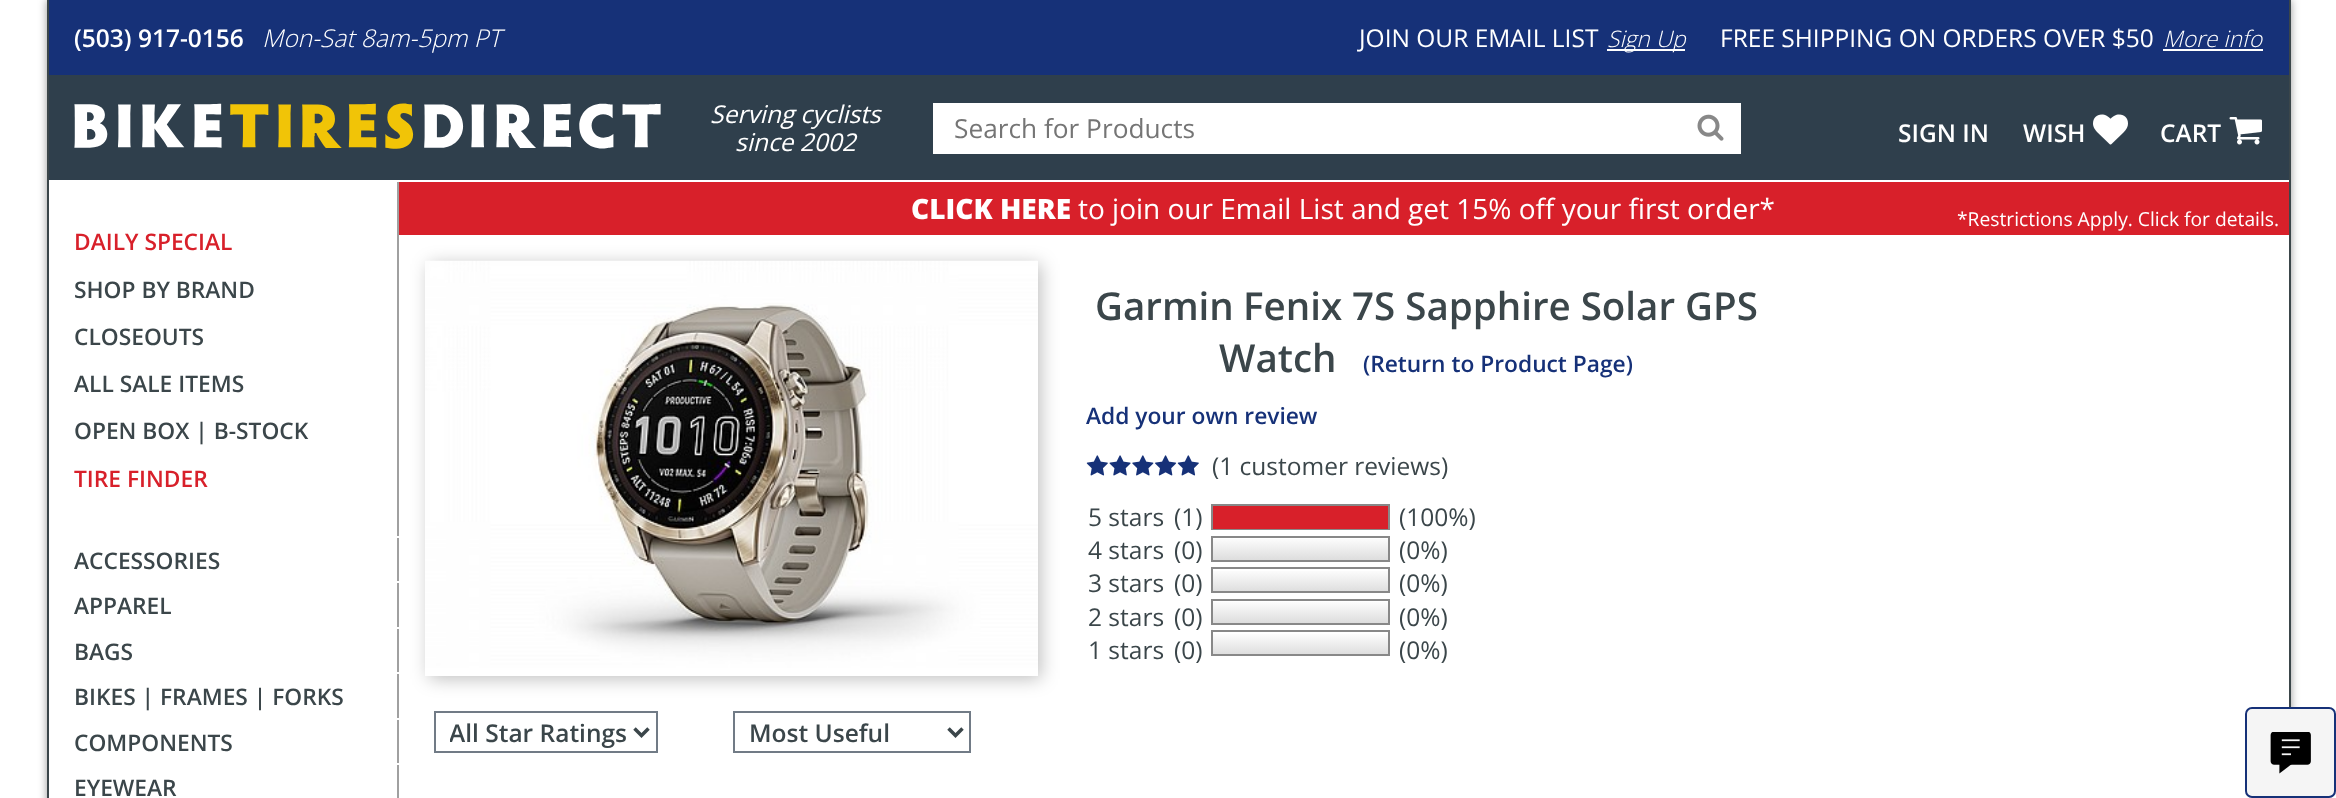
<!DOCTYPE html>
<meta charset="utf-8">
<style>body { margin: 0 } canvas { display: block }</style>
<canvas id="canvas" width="2336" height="798"></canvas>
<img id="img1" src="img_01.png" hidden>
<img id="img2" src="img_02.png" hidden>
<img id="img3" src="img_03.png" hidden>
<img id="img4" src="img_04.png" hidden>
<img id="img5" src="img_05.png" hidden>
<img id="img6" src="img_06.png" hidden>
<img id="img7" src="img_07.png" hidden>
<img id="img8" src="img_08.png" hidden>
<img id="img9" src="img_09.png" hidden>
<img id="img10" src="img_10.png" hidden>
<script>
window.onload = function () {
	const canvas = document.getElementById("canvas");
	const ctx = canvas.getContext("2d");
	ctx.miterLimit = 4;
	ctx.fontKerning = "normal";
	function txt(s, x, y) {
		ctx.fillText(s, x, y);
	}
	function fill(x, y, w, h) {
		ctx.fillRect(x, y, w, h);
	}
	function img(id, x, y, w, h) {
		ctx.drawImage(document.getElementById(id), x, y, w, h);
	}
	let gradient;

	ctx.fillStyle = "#FFFFFF";
	fill(0, 0, 2336, 798);
	ctx.save();
	ctx.beginPath();
	ctx.moveTo(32, 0);
	ctx.lineTo(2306, 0);
	ctx.lineTo(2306, 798);
	ctx.lineTo(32, 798);
	ctx.closePath();
	ctx.moveTo(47, 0);
	ctx.lineTo(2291, 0);
	ctx.lineTo(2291, 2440);
	ctx.lineTo(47, 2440);
	ctx.closePath();
	ctx.clip("evenodd");
	ctx.fillStyle = "rgba(0, 0, 0, 0.4)";
	ctx.filter = "blur(4.5px)";
	ctx.beginPath();
	ctx.rect(47, 0, 2244, 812);
	ctx.fill();
	ctx.filter = "none";
	ctx.restore();
	ctx.fillStyle = "#3B464A";
	fill(2289, 0, 2, 707);
	fill(47, 0, 2, 798);
	ctx.fillStyle = "#163178";
	fill(49, 0, 2240, 75);
	ctx.fillStyle = "#FFFFFF";
	fill(1607, 49, 78, 2);
	fill(2163, 49, 100, 2);
	ctx.fillStyle = "#2F3F4C";
	fill(49, 75, 2240, 105);
	img("img1", 74, 103, 587, 46);
	ctx.fillStyle = "#FFFFFF";
	fill(933, 103, 808, 51);
	img("img2", 1697, 114, 27, 27);
	img("img3", 2093, 114, 35, 31);
	img("img4", 2229, 117, 33, 28);
	ctx.fillStyle = "#A0A0A0";
	fill(397, 182, 2, 616);
	ctx.fillStyle = "#FFFFFF";
	fill(397, 536, 2, 2);
	fill(397, 581, 2, 2);
	fill(397, 627, 2, 2);
	fill(397, 672, 2, 2);
	fill(397, 718, 2, 2);
	fill(397, 763, 2, 2);
	ctx.fillStyle = "#D8202A";
	fill(399, 182, 1890, 53);
	ctx.save();
	ctx.beginPath();
	ctx.moveTo(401, 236);
	ctx.lineTo(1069, 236);
	ctx.lineTo(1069, 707);
	ctx.lineTo(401, 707);
	ctx.closePath();
	ctx.moveTo(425, 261);
	ctx.lineTo(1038, 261);
	ctx.lineTo(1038, 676);
	ctx.lineTo(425, 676);
	ctx.closePath();
	ctx.clip("evenodd");
	ctx.fillStyle = "rgba(0, 0, 0, 0.25)";
	ctx.filter = "blur(9px)";
	ctx.beginPath();
	ctx.rect(429, 264, 612, 415);
	ctx.fill();
	ctx.filter = "none";
	ctx.restore();
	img("img5", 425, 260, 613, 408);
	img("img6", 1086, 455, 22, 21);
	img("img7", 1109, 455, 22, 21);
	img("img8", 1132, 455, 22, 21);
	img("img9", 1155, 455, 22, 21);
	img("img6", 1177, 455, 22, 21);
	ctx.strokeStyle = "#888888";
	ctx.lineWidth = 2;
	ctx.strokeRect(1212, 505, 177, 24);
	fill(1213, 506, 175, 23);
	gradient = ctx.createLinearGradient(1300, 537, 1300, 560);
	gradient.addColorStop(0, "#FFFFFF");
	gradient.addColorStop(1, "#DDDDDD");
	ctx.fillStyle = gradient;
	fill(1213, 539, 175, 21);
	ctx.strokeRect(1212, 537, 177, 24);
	gradient = ctx.createLinearGradient(1300, 569, 1300, 592);
	gradient.addColorStop(0, "#FFFFFF");
	gradient.addColorStop(1, "#DDDDDD");
	ctx.fillStyle = gradient;
	fill(1213, 571, 175, 20);
	ctx.strokeRect(1212, 568, 177, 24);
	gradient = ctx.createLinearGradient(1300, 600, 1300, 623);
	gradient.addColorStop(0, "#FFFFFF");
	gradient.addColorStop(1, "#DDDDDD");
	ctx.fillStyle = gradient;
	fill(1213, 602, 175, 21);
	ctx.strokeRect(1212, 600, 177, 24);
	gradient = ctx.createLinearGradient(1300, 632, 1300, 655);
	gradient.addColorStop(0, "#FFFFFF");
	gradient.addColorStop(1, "#DDDDDD");
	ctx.fillStyle = gradient;
	fill(1213, 634, 175, 20);
	ctx.strokeRect(1212, 631, 177, 24);
	ctx.strokeStyle = "#717B86";
	ctx.strokeRect(435, 712, 222, 40);
	ctx.beginPath();
	ctx.moveTo(634.5, 728.5);
	ctx.lineTo(641.5, 735.5);
	ctx.lineTo(648.5, 728.5);
	ctx.strokeStyle = "#3B464A";
	ctx.lineWidth = 3.5;
	ctx.stroke();
	ctx.strokeStyle = "#717B86";
	ctx.lineWidth = 2;
	ctx.strokeRect(734, 712, 236, 40);
	ctx.beginPath();
	ctx.moveTo(948.5, 728.5);
	ctx.lineTo(955.5, 735.5);
	ctx.lineTo(962.5, 728.5);
	ctx.strokeStyle = "#3B464A";
	ctx.lineWidth = 3.5;
	ctx.stroke();
	ctx.fillStyle = "#F5F5F5";
	ctx.beginPath();
	ctx.roundRect(2246, 708, 89, 89, 6);
	ctx.fill();
	ctx.strokeStyle = "#163178";
	ctx.lineWidth = 2;
	ctx.stroke();
	img("img10", 2270, 732, 41, 42);
	ctx.font = "600 24.5px Open Sans";
	ctx.fillStyle = "#FFFFFF";
	txt("(503) 917-0156", 74, 47);
	ctx.font = "italic 300 24.5px Open Sans";
	txt("Mon-Sat 8am-5pm PT", 262, 47);
	ctx.font = "24.5px Open Sans";
	txt("JOIN OUR EMAIL LIST", 1359, 47);
	ctx.font = "italic 300 22.75px Open Sans";
	txt("Sign Up", 1607, 47);
	ctx.font = "24.5px Open Sans";
	txt("FREE SHIPPING ON ORDERS OVER $50", 1720, 47);
	ctx.font = "italic 300 22.75px Open Sans";
	txt("More info", 2163, 47);
	ctx.font = "italic 24.5px Open Sans";
	txt("Serving cyclists", 710, 123);
	txt("since 2002", 735, 151);
	ctx.font = "26.25px Open Sans";
	ctx.fillStyle = "#757575";
	txt("Search for Products", 954, 138);
	ctx.font = "600 24.5px Open Sans";
	ctx.fillStyle = "#FFFFFF";
	txt("SIGN IN", 1898, 142);
	txt("WISH", 2023, 142);
	txt("CART", 2160, 142);
	ctx.font = "600 22.75px Open Sans";
	ctx.fillStyle = "#D8202A";
	txt("DAILY SPECIAL", 74, 250);
	ctx.fillStyle = "#3B464A";
	txt("SHOP BY BRAND", 74, 298);
	txt("CLOSEOUTS", 74, 345);
	txt("ALL SALE ITEMS", 74, 392);
	txt("OPEN BOX | B-STOCK", 74, 439);
	ctx.fillStyle = "#D8202A";
	txt("TIRE FINDER", 74, 487);
	ctx.fillStyle = "#3B464A";
	txt("ACCESSORIES", 74, 569);
	txt("APPAREL", 74, 614);
	txt("BAGS", 74, 660);
	txt("BIKES | FRAMES | FORKS", 74, 705);
	txt("COMPONENTS", 74, 751);
	txt("EYEWEAR", 74, 796);
	ctx.font = "800 28px Open Sans";
	ctx.fillStyle = "#FFFFFF";
	txt("CLICK HERE", 911, 219);
	ctx.font = "28px Open Sans";
	txt("to join our Email List and get 15% off your first order*", 1078, 219);
	ctx.font = "19.25px Open Sans";
	txt("*Restrictions Apply. Click for details.", 1957, 226);
	ctx.font = "600 38.5px Open Sans";
	ctx.fillStyle = "#3B464A";
	txt("Garmin", 1095, 320);
	txt("Fenix 7S Sapphire Solar GPS", 1243, 320);
	txt("Watch", 1219, 372);
	ctx.font = "600 22.75px Open Sans";
	ctx.fillStyle = "#163178";
	txt("(Return to Product Page)", 1363, 372);
	txt("Add your own review", 1086, 424);
	ctx.font = "24.5px Open Sans";
	ctx.fillStyle = "#3B464A";
	txt("(1 customer reviews)", 1212, 475);
	txt("5 stars", 1088, 526);
	txt("4 stars", 1088, 559);
	txt("3 stars", 1088, 592);
	txt("2 stars", 1088, 626);
	txt("1 stars", 1088, 659);
	txt("(1)", 1174, 526);
	txt("(0)", 1174, 559);
	txt("(0)", 1174, 592);
	txt("(0)", 1174, 626);
	txt("(0)", 1174, 659);
	txt("(100%)", 1399, 526);
	txt("(0%)", 1399, 559);
	txt("(0%)", 1399, 592);
	txt("(0%)", 1399, 626);
	txt("(0%)", 1399, 659);
	ctx.save();
	ctx.beginPath();
	ctx.rect(450, 714, 178, 37);
	ctx.clip();
	ctx.font = "600 24.5px Open Sans";
	txt("All Star Ratings", 449, 742);
	ctx.restore();
	ctx.font = "600 24.5px Open Sans";
	txt("Most Useful", 749, 742);
};
</script>
